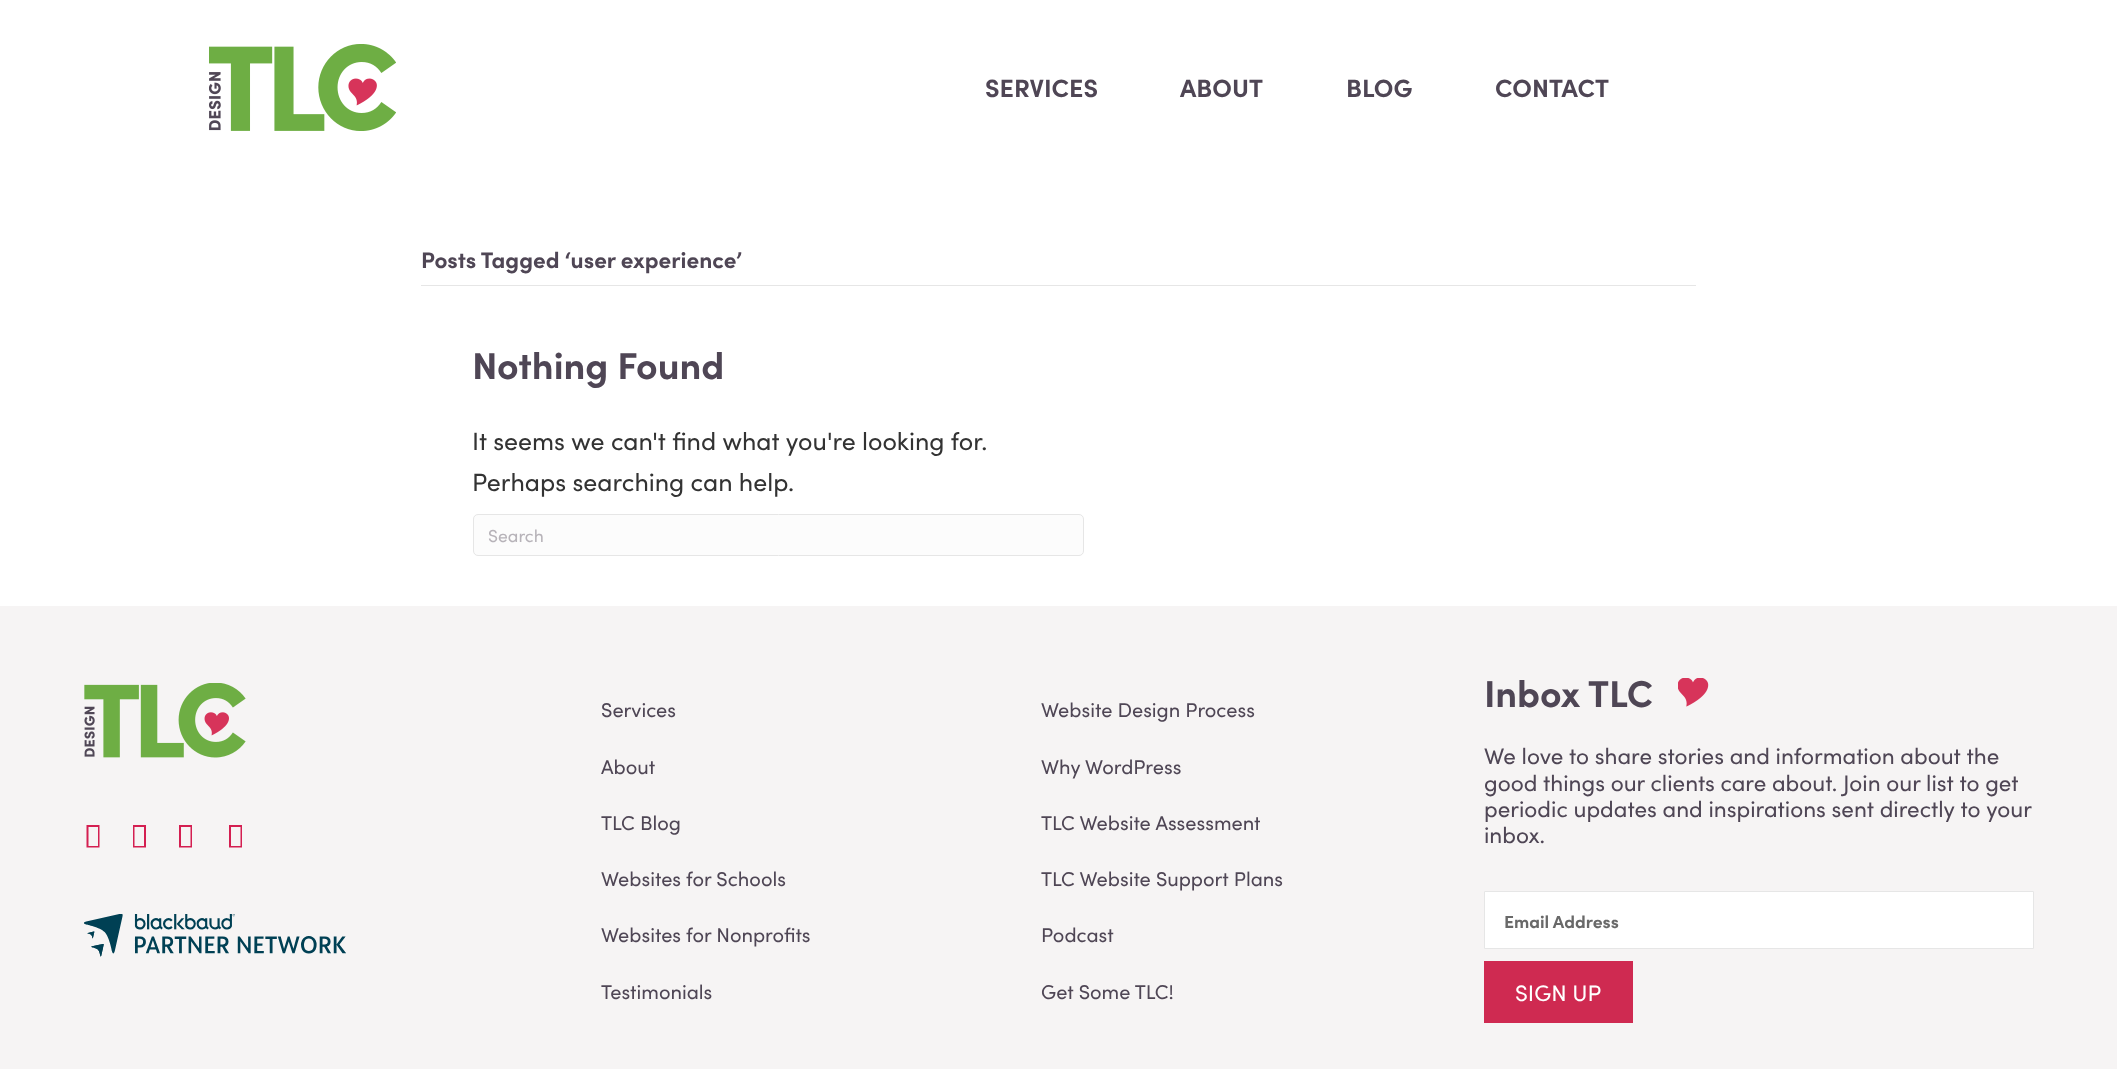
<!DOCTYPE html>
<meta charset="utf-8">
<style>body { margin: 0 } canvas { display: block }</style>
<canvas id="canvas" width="2117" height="1069"></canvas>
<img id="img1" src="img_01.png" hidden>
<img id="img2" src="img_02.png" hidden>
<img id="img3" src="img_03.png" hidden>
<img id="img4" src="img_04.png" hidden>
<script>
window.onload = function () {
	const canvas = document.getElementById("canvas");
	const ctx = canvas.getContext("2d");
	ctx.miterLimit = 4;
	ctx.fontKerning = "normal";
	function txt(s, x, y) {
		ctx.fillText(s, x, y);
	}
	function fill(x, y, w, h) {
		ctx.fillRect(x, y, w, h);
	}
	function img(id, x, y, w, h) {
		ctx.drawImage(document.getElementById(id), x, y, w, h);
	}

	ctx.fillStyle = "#FFFFFF";
	fill(0, 0, 2117, 1069);
	img("img1", 209, 44, 187, 87);
	ctx.fillStyle = "#E6E6E6";
	fill(421, 285, 1275, 1);
	ctx.fillStyle = "#FCFCFC";
	ctx.beginPath();
	ctx.roundRect(473.5, 514.5, 610, 41, 4.5);
	ctx.fill();
	ctx.strokeStyle = "#E6E6E6";
	ctx.stroke();
	ctx.fillStyle = "#F6F4F4";
	fill(0, 606, 2117, 463);
	img("img2", 84, 683, 162, 75);
	ctx.fillStyle = "#D41F51";
	ctx.beginPath();
	ctx.moveTo(86.5, 847.5);
	ctx.lineTo(86.5, 825);
	ctx.lineTo(99.5, 825);
	ctx.lineTo(99.5, 847.5);
	ctx.closePath();
	ctx.moveTo(88.5, 846);
	ctx.lineTo(98, 846);
	ctx.lineTo(98, 827);
	ctx.lineTo(88.5, 827);
	ctx.closePath();
	ctx.moveTo(133, 847.5);
	ctx.lineTo(133, 825);
	ctx.lineTo(146, 825);
	ctx.lineTo(146, 847.5);
	ctx.closePath();
	ctx.moveTo(134.5, 846);
	ctx.lineTo(144, 846);
	ctx.lineTo(144, 827);
	ctx.lineTo(134.5, 827);
	ctx.closePath();
	ctx.fill();
	ctx.beginPath();
	ctx.moveTo(179, 847.5);
	ctx.lineTo(179, 825);
	ctx.lineTo(192, 825);
	ctx.lineTo(192, 847.5);
	ctx.closePath();
	ctx.moveTo(181, 846);
	ctx.lineTo(190.5, 846);
	ctx.lineTo(190.5, 827);
	ctx.lineTo(181, 827);
	ctx.closePath();
	ctx.moveTo(229, 847.5);
	ctx.lineTo(229, 825);
	ctx.lineTo(242, 825);
	ctx.lineTo(242, 847.5);
	ctx.closePath();
	ctx.moveTo(231, 846);
	ctx.lineTo(240.5, 846);
	ctx.lineTo(240.5, 827);
	ctx.lineTo(231, 827);
	ctx.closePath();
	ctx.fill();
	img("img3", 84, 914, 262, 43);
	img("img4", 1678, 678, 31, 29);
	ctx.fillStyle = "#FFFFFF";
	ctx.beginPath();
	ctx.rect(1484.5, 891.5, 549, 57);
	ctx.fill();
	ctx.stroke();
	ctx.fillStyle = "#CF2A51";
	fill(1484, 961, 149, 62);
	ctx.font = "bold 25px Sofia";
	ctx.fillStyle = "#4F4655";
	txt("SERVICES", 985, 97);
	txt("ABOUT", 1180, 97);
	txt("BLOG", 1346, 97);
	txt("CONTACT", 1495, 97);
	ctx.font = "bold 22.5px Sofia";
	txt("Posts Tagged ‘user experience’", 421, 268);
	ctx.font = "bold 37.5px Sofia";
	txt("Nothing Found", 472, 379);
	ctx.font = "25px Sofia";
	ctx.fillStyle = "#333333";
	txt("It seems we can't find what you're looking for.", 472, 450);
	txt("Perhaps searching can help.", 472, 491);
	ctx.font = "17.5px Sofia";
	ctx.fillStyle = "#B7B3B9";
	txt("Search", 488, 542);
	ctx.font = "20px Sofia";
	ctx.fillStyle = "#4F4655";
	txt("Services", 601, 717);
	txt("About", 601, 774);
	txt("TLC Blog", 601, 830);
	txt("Websites for Schools", 601, 886);
	txt("Websites for Nonprofits", 601, 942);
	txt("Testimonials", 601, 999);
	txt("Website Design Process", 1041, 717);
	txt("Why WordPress", 1041, 774);
	txt("TLC Website Assessment", 1041, 830);
	txt("TLC Website Support Plans", 1041, 886);
	txt("Podcast", 1041, 942);
	txt("Get Some TLC!", 1041, 999);
	ctx.font = "bold 37.5px Sofia";
	txt("Inbox TLC", 1484, 707);
	ctx.font = "22.5px Sofia";
	txt("We love to share stories and information about the", 1484, 764);
	txt("good things our clients care about. Join our list to get", 1484, 791);
	txt("periodic updates and inspirations sent directly to your", 1484, 817);
	txt("inbox.", 1484, 843);
	ctx.font = "bold 17.5px Sofia";
	ctx.fillStyle = "#696969";
	txt("Email Address", 1504, 928);
	ctx.font = "22.5px Sofia";
	ctx.fillStyle = "#FFFFFF";
	txt("SIGN UP", 1515, 1001);
};
</script>
